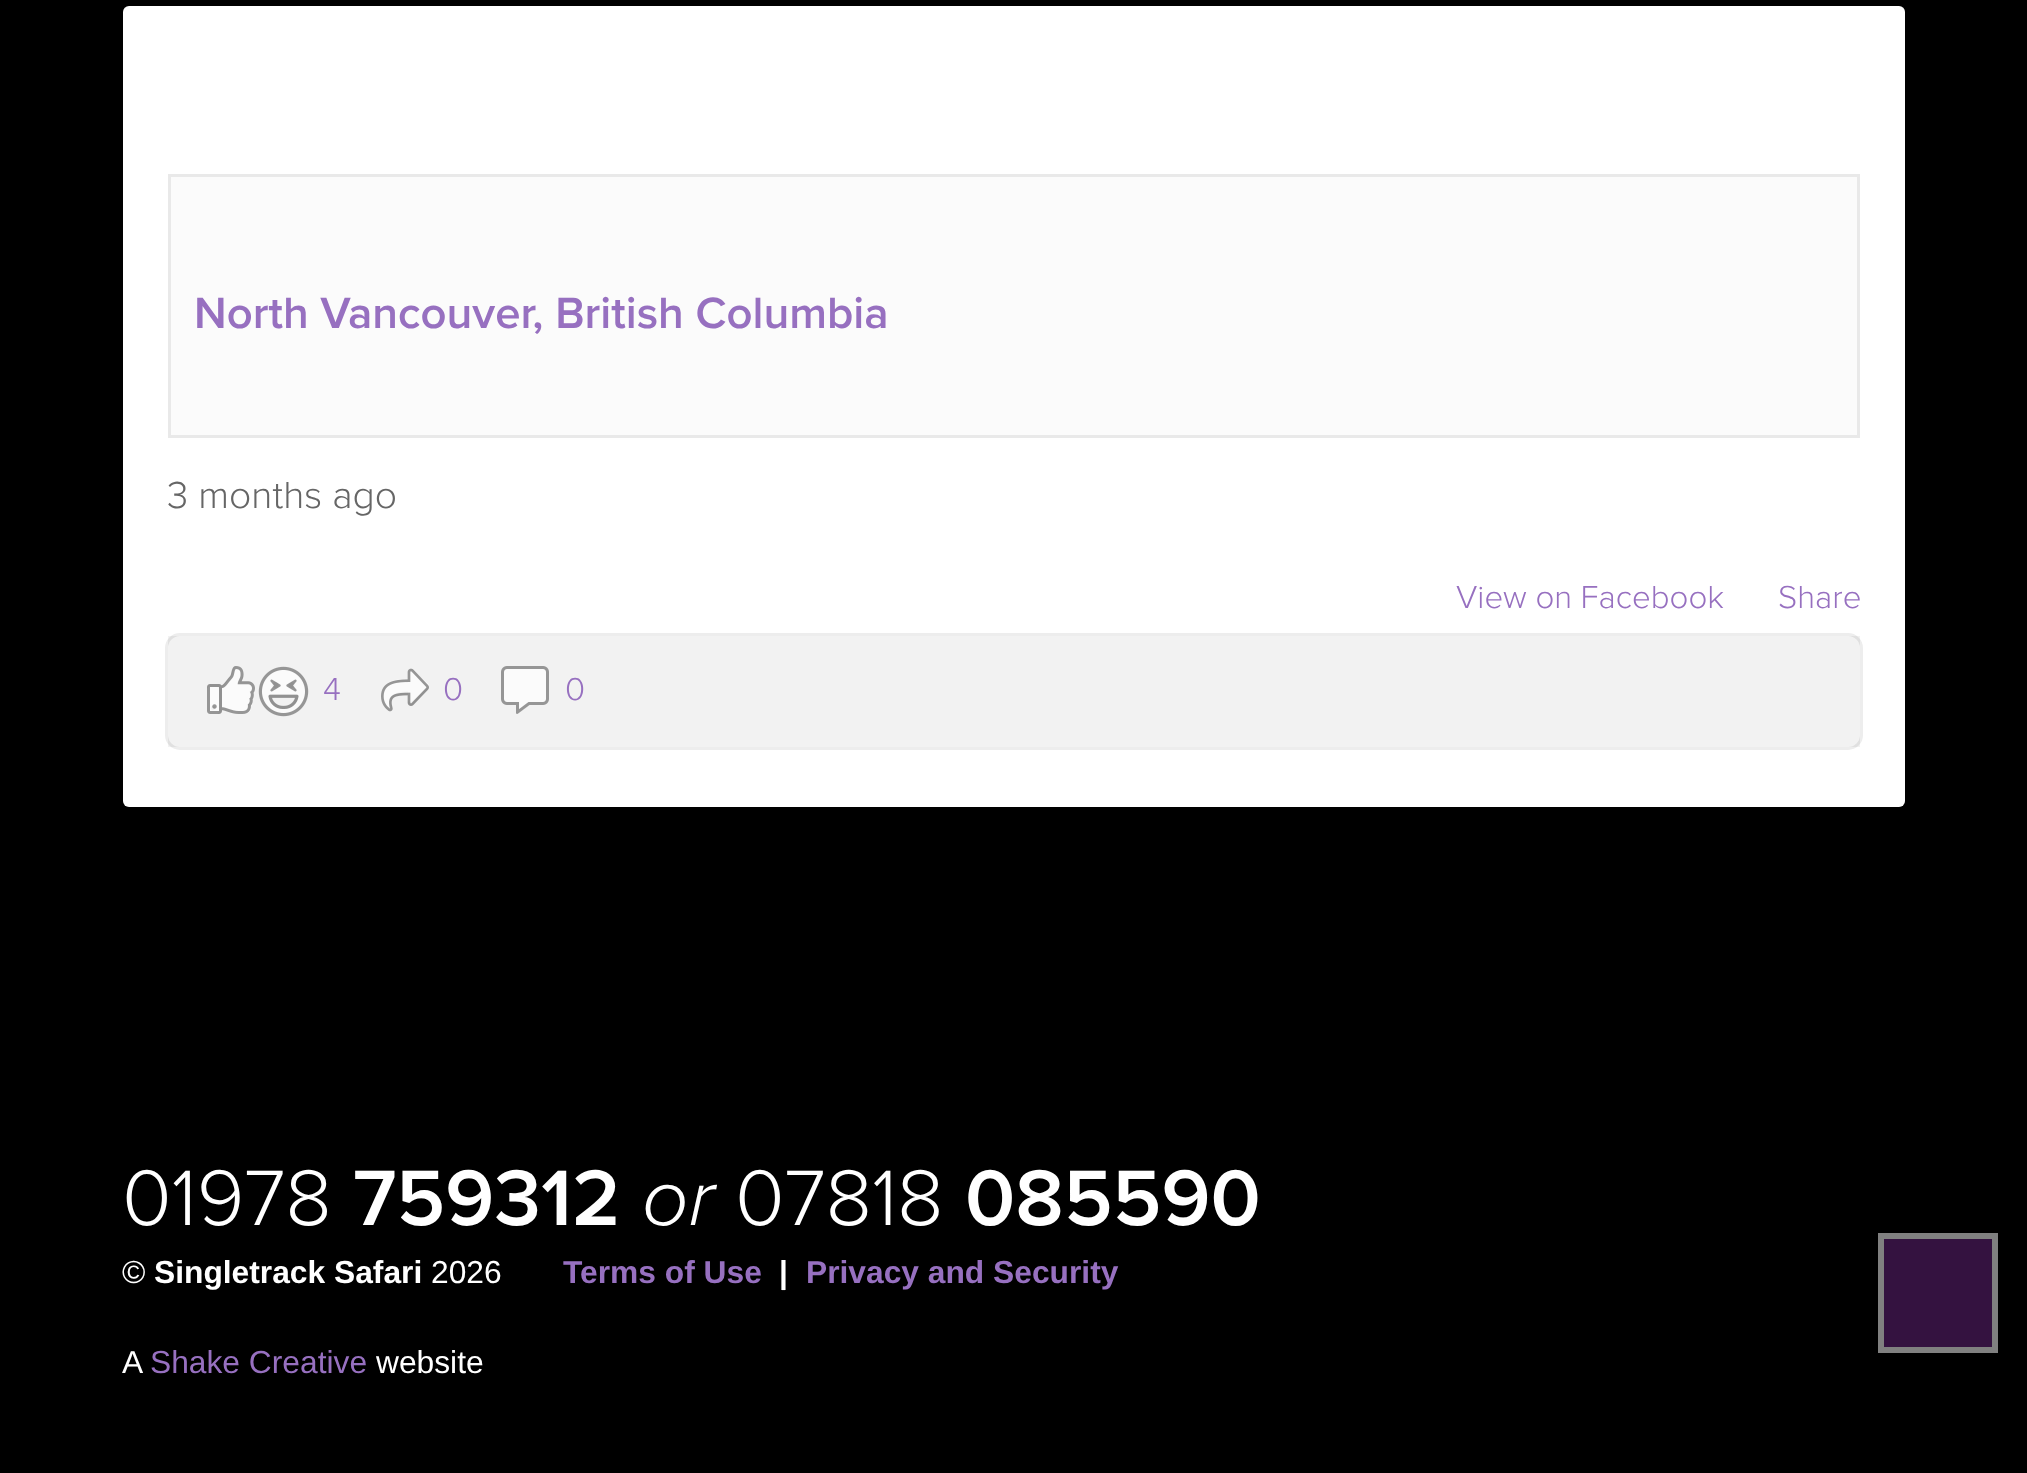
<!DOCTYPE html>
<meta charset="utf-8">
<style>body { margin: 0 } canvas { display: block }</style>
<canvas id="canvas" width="2027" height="1473"></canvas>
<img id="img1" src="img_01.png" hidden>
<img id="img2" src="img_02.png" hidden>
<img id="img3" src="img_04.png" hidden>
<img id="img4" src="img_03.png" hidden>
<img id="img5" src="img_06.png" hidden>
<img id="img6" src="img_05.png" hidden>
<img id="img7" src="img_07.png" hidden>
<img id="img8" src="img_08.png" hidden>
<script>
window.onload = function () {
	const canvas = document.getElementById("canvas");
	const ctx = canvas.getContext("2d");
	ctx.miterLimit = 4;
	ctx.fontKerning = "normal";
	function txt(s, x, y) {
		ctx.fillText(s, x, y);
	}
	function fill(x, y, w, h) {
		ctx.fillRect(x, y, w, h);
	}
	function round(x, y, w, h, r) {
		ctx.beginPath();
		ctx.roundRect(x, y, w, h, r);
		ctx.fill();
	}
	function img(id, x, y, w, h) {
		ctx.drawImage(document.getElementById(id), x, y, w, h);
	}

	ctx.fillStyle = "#000000";
	fill(0, 0, 2027, 1473);
	ctx.fillStyle = "#FFFFFF";
	round(123, 6, 1782, 801, 6);
	ctx.fillStyle = "#FBFBFB";
	ctx.beginPath();
	ctx.rect(169.5, 175.5, 1689, 261);
	ctx.fill();
	ctx.strokeStyle = "#E9E9E9";
	ctx.lineWidth = 3;
	ctx.stroke();
	ctx.beginPath();
	ctx.roundRect(166.5, 634.5, 1695, 114, 13.5);
	ctx.strokeStyle = "#EDEDED";
	ctx.stroke();
	ctx.fillStyle = "rgba(0, 0, 0, 0.05)";
	fill(168, 636, 1692, 111);
	img("img1", 207, 666, 48, 48);
	img("img2", 207, 666, 48, 48);
	img("img3", 259, 667, 49, 49);
	img("img4", 258, 666, 51, 51);
	img("img5", 381, 669, 48, 42);
	img("img6", 381, 668, 48, 44);
	img("img7", 501, 666, 48, 48);
	img("img8", 501, 666, 48, 48);
	ctx.fillStyle = "#341240";
	ctx.beginPath();
	ctx.rect(1881, 1236, 114, 114);
	ctx.fill();
	ctx.strokeStyle = "#808080";
	ctx.lineWidth = 6;
	ctx.stroke();
	ctx.font = "600 45.4px Proxima Nova";
	ctx.fillStyle = "#9770C0";
	txt("North Vancouver, British Columbia", 194, 328);
	ctx.font = "300 39px Proxima Nova";
	ctx.fillStyle = "#666666";
	txt("3 months ago", 167, 508);
	ctx.font = "300 33px Proxima Nova";
	ctx.fillStyle = "#9770C0";
	txt("View on Facebook", 1456, 608);
	txt("Share", 1778, 608);
	txt("4", 323, 700);
	txt("0", 443, 700);
	txt("0", 565, 700);
	ctx.font = "300 81.5px Proxima Nova";
	ctx.fillStyle = "#FFFFFF";
	txt("01978", 122, 1225);
	ctx.font = "600 81.5px Proxima Nova";
	txt("759312", 353, 1225);
	ctx.font = "italic 300 81.5px Proxima Nova";
	txt("or", 642, 1225);
	ctx.font = "300 81.5px Proxima Nova";
	txt("07818", 735, 1225);
	ctx.font = "600 81.5px Proxima Nova";
	txt("085590", 965, 1225);
	ctx.font = "31.75px Liberation Sans";
	txt("©", 122, 1283);
	ctx.font = "bold 31.75px Liberation Sans";
	txt("Singletrack Safari", 154, 1283);
	ctx.font = "31.75px Liberation Sans";
	txt("2026", 431, 1283);
	ctx.font = "bold 31.75px Liberation Sans";
	ctx.fillStyle = "#9770C0";
	txt("Terms of Use", 563, 1283);
	ctx.fillStyle = "#FFFFFF";
	txt("|", 779, 1283);
	ctx.fillStyle = "#9770C0";
	txt("Privacy and Security", 806, 1283);
	ctx.font = "31.75px Liberation Sans";
	ctx.fillStyle = "#FFFFFF";
	txt("A", 122, 1373);
	ctx.fillStyle = "#9770C0";
	txt("Shake Creative", 150, 1373);
	ctx.fillStyle = "#FFFFFF";
	txt("website", 376, 1373);
};
</script>
